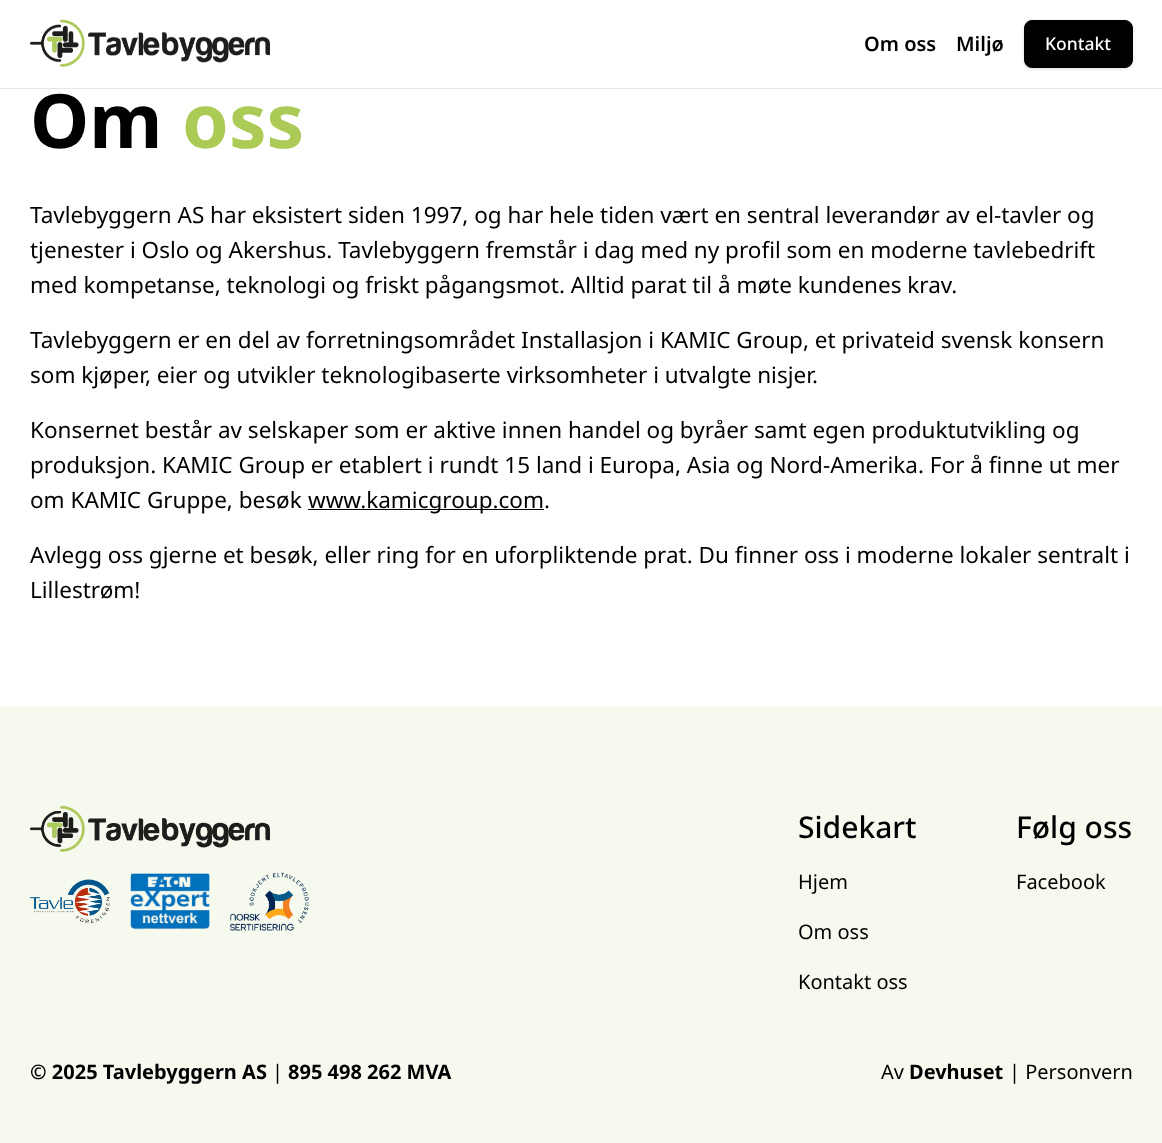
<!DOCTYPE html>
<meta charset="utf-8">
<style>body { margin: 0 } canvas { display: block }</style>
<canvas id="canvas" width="1162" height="1143"></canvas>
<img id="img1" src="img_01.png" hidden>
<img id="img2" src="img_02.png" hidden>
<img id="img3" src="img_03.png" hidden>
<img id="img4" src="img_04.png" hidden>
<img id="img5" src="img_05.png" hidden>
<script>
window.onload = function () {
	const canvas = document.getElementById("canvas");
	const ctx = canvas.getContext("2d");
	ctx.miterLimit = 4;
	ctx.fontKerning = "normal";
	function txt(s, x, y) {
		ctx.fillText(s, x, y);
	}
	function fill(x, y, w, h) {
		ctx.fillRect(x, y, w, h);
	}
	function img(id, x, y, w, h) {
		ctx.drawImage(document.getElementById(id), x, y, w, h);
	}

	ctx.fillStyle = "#FFFFFF";
	fill(0, 0, 1162, 1143);
	ctx.fillStyle = "#E5E7EB";
	fill(0, 88, 1162, 1);
	img("img1", 30, 19, 240, 48);
	ctx.fillStyle = "rgba(0, 0, 0, 0.1)";
	ctx.filter = "blur(1px)";
	ctx.beginPath();
	ctx.roundRect(1025, 23, 106, 45, 6);
	ctx.fill();
	ctx.filter = "none";
	ctx.filter = "blur(2px)";
	ctx.beginPath();
	ctx.roundRect(1024, 21, 109, 48, 8);
	ctx.fill();
	ctx.filter = "none";
	ctx.fillStyle = "#000000";
	ctx.beginPath();
	ctx.roundRect(1024.5, 20.5, 108, 47, 7.5);
	ctx.fill();
	ctx.strokeStyle = "#000000";
	ctx.stroke();
	fill(308, 509, 236, 1);
	ctx.fillStyle = "#F6F9EE";
	fill(0, 706, 1162, 437);
	img("img2", 30, 805, 240, 47);
	img("img3", 30, 879, 80, 45);
	img("img4", 130, 873, 80, 57);
	img("img5", 230, 872, 80, 59);
	ctx.font = "600 20px Noto Sans";
	ctx.fillStyle = "#000000";
	txt("Om oss", 864, 51);
	txt("Miljø", 956, 51);
	ctx.font = "500 17.5px Noto Sans";
	ctx.fillStyle = "#FFFFFF";
	txt("Kontakt", 1045, 50);
	ctx.font = "bold 75px Noto Sans";
	ctx.fillStyle = "#000000";
	txt("Om", 30, 148);
	ctx.fillStyle = "#ACCB56";
	txt("oss", 182, 148);
	ctx.font = "22.5px Noto Sans";
	ctx.fillStyle = "#000000";
	txt("Tavlebyggern AS har eksistert siden 1997, og har hele tiden vært en sentral leverandør av el-tavler og", 30, 223);
	txt("tjenester i Oslo og Akershus. Tavlebyggern fremstår i dag med ny profil som en moderne tavlebedrift", 30, 258);
	txt("med kompetanse, teknologi og friskt pågangsmot. Alltid parat til å møte kundenes krav.", 30, 293);
	txt("Tavlebyggern er en del av forretningsområdet Installasjon i KAMIC Group, et privateid svensk konsern", 30, 348);
	txt("som kjøper, eier og utvikler teknologibaserte virksomheter i utvalgte nisjer.", 30, 383);
	txt("Konsernet består av selskaper som er aktive innen handel og byråer samt egen produktutvikling og", 30, 438);
	txt("produksjon. KAMIC Group er etablert i rundt 15 land i Europa, Asia og Nord-Amerika. For å finne ut mer", 30, 473);
	txt("om KAMIC Gruppe, besøk", 30, 508);
	txt("www.kamicgroup.com.", 308, 508);
	txt("Avlegg oss gjerne et besøk, eller ring for en uforpliktende prat. Du finner oss i moderne lokaler sentralt i", 30, 563);
	txt("Lillestrøm!", 30, 598);
	ctx.font = "500 30px Noto Sans";
	txt("Sidekart", 798, 838);
	ctx.font = "20px Noto Sans";
	txt("Hjem", 798, 889);
	txt("Om oss", 798, 939);
	txt("Kontakt oss", 798, 989);
	ctx.font = "500 30px Noto Sans";
	txt("Følg oss", 1016, 838);
	ctx.font = "20px Noto Sans";
	txt("Facebook", 1016, 889);
	ctx.font = "bold 20px Noto Sans";
	txt("© 2025 Tavlebyggern AS", 30, 1079);
	ctx.font = "20px Noto Sans";
	txt("|", 272, 1079);
	ctx.font = "bold 20px Noto Sans";
	txt("895 498 262 MVA", 288, 1079);
	ctx.font = "20px Noto Sans";
	txt("Av", 881, 1079);
	ctx.font = "bold 20px Noto Sans";
	txt("Devhuset", 909, 1079);
	ctx.font = "20px Noto Sans";
	txt("| Personvern", 1009, 1079);
};
</script>
